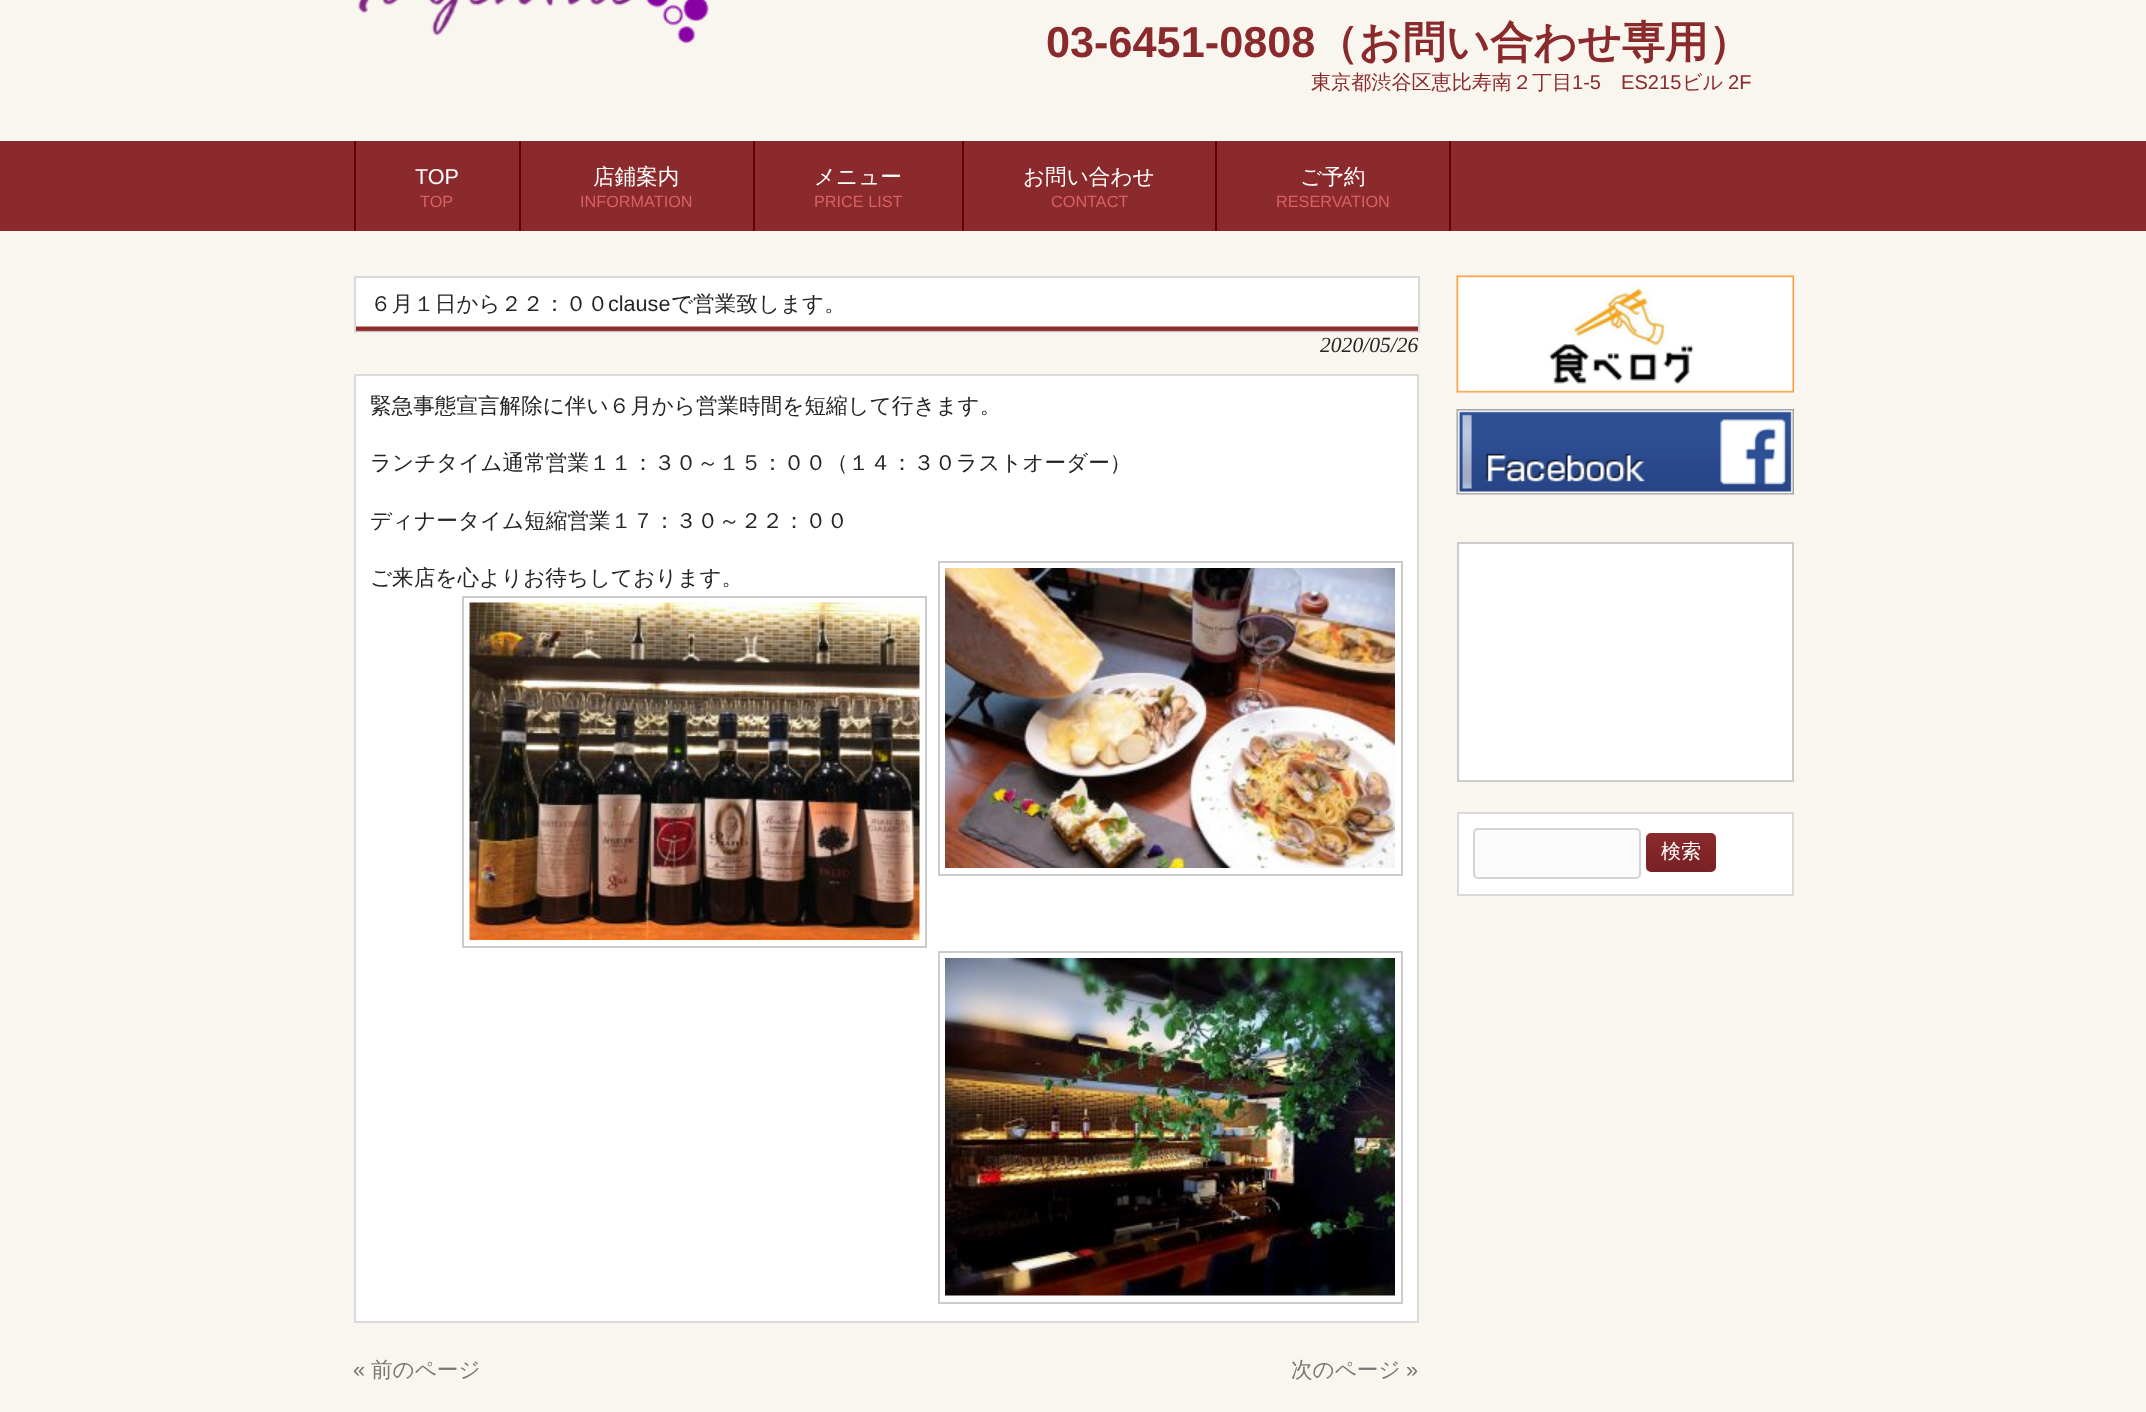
<!DOCTYPE html>
<meta charset="utf-8">
<style>body { margin: 0 } canvas { display: block }</style>
<canvas id="canvas" width="2146" height="1412"></canvas>
<img id="img1" src="img_01.png" hidden>
<img id="img2" src="img_02.png" hidden>
<img id="img3" src="img_03.png" hidden>
<img id="img4" src="img_04.png" hidden>
<img id="img5" src="img_05.png" hidden>
<img id="img6" src="img_06.png" hidden>
<img id="img7" src="img_07.png" hidden>
<script>
window.onload = function () {
	const canvas = document.getElementById("canvas");
	const ctx = canvas.getContext("2d");
	ctx.miterLimit = 4;
	ctx.fontKerning = "normal";
	function txt(s, x, y) {
		ctx.fillText(s, x, y);
	}
	function fill(x, y, w, h) {
		ctx.fillRect(x, y, w, h);
	}
	function round(x, y, w, h, r) {
		ctx.beginPath();
		ctx.roundRect(x, y, w, h, r);
		ctx.fill();
	}
	function img(id, x, y, w, h) {
		ctx.drawImage(document.getElementById(id), x, y, w, h);
	}
	let gradient;

	ctx.fillStyle = "#F9F5EF";
	fill(0, 0, 2146, 1412);
	img("img1", 358, 0, 351, 43);
	ctx.fillStyle = "#8B2A2C";
	fill(0, 141, 2146, 90);
	ctx.fillStyle = "#660000";
	fill(519, 141, 2, 90);
	fill(354, 141, 2, 90);
	fill(753, 141, 2, 90);
	fill(962, 141, 2, 90);
	fill(1215, 141, 2, 90);
	fill(1449, 141, 2, 90);
	ctx.fillStyle = "#FFFFFF";
	fill(356, 278, 1062, 55);
	img("img2", 356, 326, 1062, 7);
	ctx.fillStyle = "#DADADA";
	fill(354, 276, 1065, 2);
	fill(1418, 276, 2, 57);
	fill(354, 276, 2, 57);
	ctx.fillStyle = "#FFFFFF";
	ctx.beginPath();
	ctx.rect(355, 375, 1063, 947);
	ctx.fill();
	ctx.strokeStyle = "#DADADA";
	ctx.lineWidth = 2;
	ctx.stroke();
	ctx.strokeStyle = "#CCCCCC";
	ctx.strokeRect(939, 562, 463, 313);
	img("img3", 945, 568, 450, 300);
	ctx.strokeRect(463, 597, 463, 350);
	img("img4", 469, 602, 451, 338);
	ctx.strokeRect(939, 952, 463, 351);
	img("img5", 945, 958, 450, 338);
	img("img6", 1456, 275, 338, 118);
	img("img7", 1456, 409, 338, 86);
	ctx.beginPath();
	ctx.rect(1458, 543, 335, 238);
	ctx.fill();
	ctx.stroke();
	ctx.beginPath();
	ctx.rect(1458, 813, 335, 82);
	ctx.fill();
	ctx.strokeStyle = "#DADADA";
	ctx.stroke();
	ctx.fillStyle = "#FCFCFC";
	ctx.beginPath();
	ctx.roundRect(1474, 829, 166, 49, 4);
	ctx.fill();
	ctx.strokeStyle = "#D4D4D7";
	ctx.stroke();
	gradient = ctx.createLinearGradient(1681, 833, 1681, 872);
	gradient.addColorStop(0, "#8B2A2C");
	gradient.addColorStop(1, "#782123");
	ctx.fillStyle = gradient;
	round(1646, 833, 70, 39, 5);
	ctx.font = "bold 43.25px Liberation Sans";
	ctx.fillStyle = "#8B2A2C";
	txt("03-6451-0808", 1046, 57);
	ctx.font = "bold 43.25px WenQuanYi Zen Hei";
	txt("（お問い合わせ専用）", 1315, 57);
	ctx.font = "500 20.1px WenQuanYi Zen Hei";
	txt("東京都渋谷区恵比寿南２丁目", 1311, 89);
	ctx.font = "20.1px Liberation Sans";
	txt("1-5", 1572, 89);
	txt("ES215", 1621, 89);
	ctx.font = "500 20.1px WenQuanYi Zen Hei";
	txt("ビル", 1682, 89);
	ctx.font = "20.1px Liberation Sans";
	txt("2F", 1728, 89);
	ctx.font = "21.6px Liberation Sans";
	ctx.fillStyle = "#FFFFFF";
	txt("TOP", 415, 184);
	ctx.font = "16.25px Liberation Sans";
	ctx.fillStyle = "#D96063";
	txt("TOP", 420, 207);
	ctx.font = "500 21.6px WenQuanYi Zen Hei";
	ctx.fillStyle = "#FFFFFF";
	txt("店鋪案内", 593, 184);
	ctx.font = "16.25px Liberation Sans";
	ctx.fillStyle = "#D96063";
	txt("INFORMATION", 580, 207);
	ctx.font = "500 21.6px WenQuanYi Zen Hei";
	ctx.fillStyle = "#FFFFFF";
	txt("メニュー", 814, 184);
	ctx.font = "16.25px Liberation Sans";
	ctx.fillStyle = "#D96063";
	txt("PRICE LIST", 814, 207);
	ctx.font = "500 21.6px WenQuanYi Zen Hei";
	ctx.fillStyle = "#FFFFFF";
	txt("お問い合わせ", 1023, 184);
	ctx.font = "16.25px Liberation Sans";
	ctx.fillStyle = "#D96063";
	txt("CONTACT", 1051, 207);
	ctx.font = "500 21.6px WenQuanYi Zen Hei";
	ctx.fillStyle = "#FFFFFF";
	txt("ご予約", 1300, 184);
	ctx.font = "16.25px Liberation Sans";
	ctx.fillStyle = "#D96063";
	txt("RESERVATION", 1276, 207);
	ctx.font = "500 21.6px WenQuanYi Zen Hei";
	ctx.fillStyle = "#252525";
	txt("６月１日から２２：００", 370, 311);
	ctx.font = "21.6px Liberation Sans";
	txt("clause", 608, 311);
	ctx.font = "500 21.6px WenQuanYi Zen Hei";
	txt("で営業致します。", 671, 311);
	ctx.font = "italic 21.6px Liberation Serif";
	txt("2020/05/26", 1320, 352);
	ctx.font = "500 21.6px WenQuanYi Zen Hei";
	txt("緊急事態宣言解除に伴い６月から営業時間を短縮して行きます。", 370, 413);
	txt("ランチタイム通常営業１１：３０～１５：００（１４：３０ラストオーダー）", 370, 470);
	txt("ディナータイム短縮営業１７：３０～２２：００", 370, 528);
	txt("ご来店を心よりお待ちしております。", 370, 585);
	ctx.font = "21.6px Liberation Sans";
	ctx.fillStyle = "#777777";
	txt("«", 353, 1377);
	ctx.font = "500 21.6px WenQuanYi Zen Hei";
	txt("前のページ", 371, 1377);
	txt("次のページ", 1291, 1377);
	ctx.font = "21.6px Liberation Sans";
	txt("»", 1406, 1377);
	ctx.font = "500 20.1px WenQuanYi Zen Hei";
	ctx.fillStyle = "#FFFFFF";
	txt("検索", 1661, 858);
};
</script>
